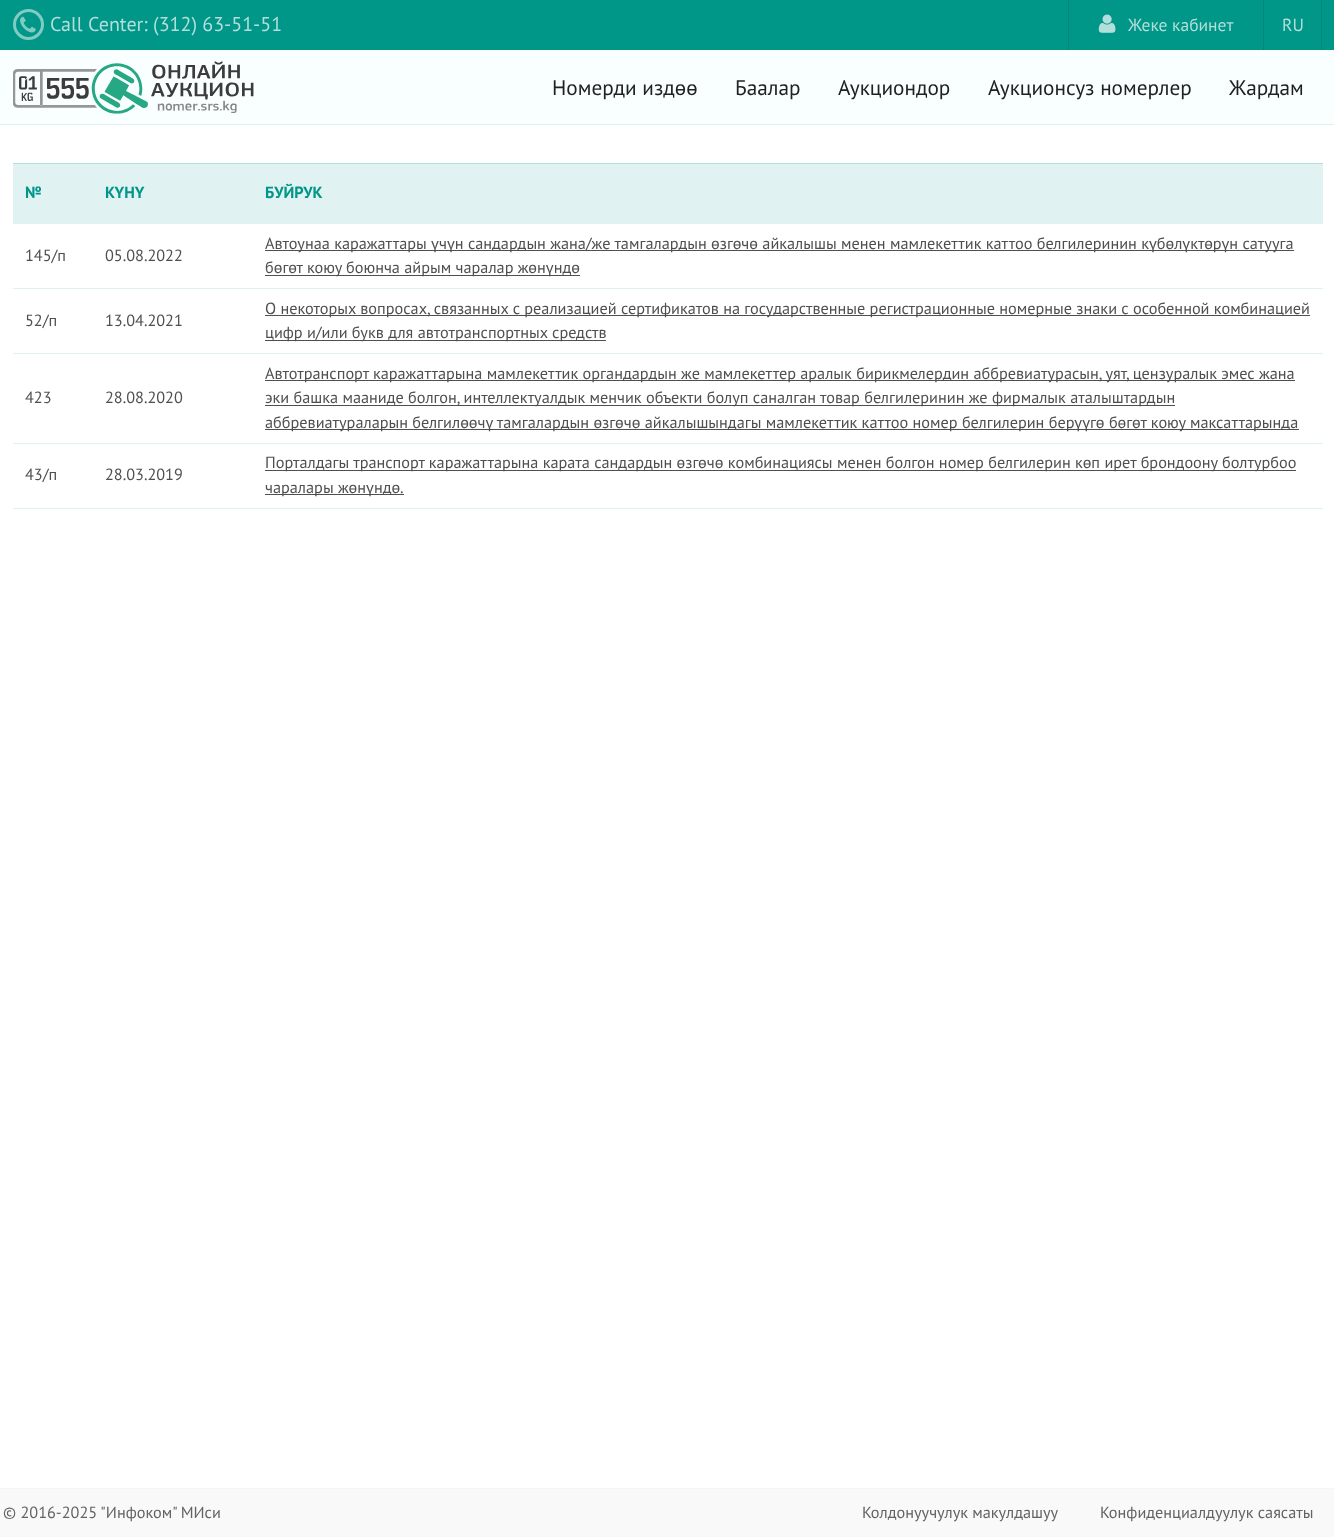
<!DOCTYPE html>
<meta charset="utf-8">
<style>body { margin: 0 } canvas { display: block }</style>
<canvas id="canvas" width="1334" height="1537"></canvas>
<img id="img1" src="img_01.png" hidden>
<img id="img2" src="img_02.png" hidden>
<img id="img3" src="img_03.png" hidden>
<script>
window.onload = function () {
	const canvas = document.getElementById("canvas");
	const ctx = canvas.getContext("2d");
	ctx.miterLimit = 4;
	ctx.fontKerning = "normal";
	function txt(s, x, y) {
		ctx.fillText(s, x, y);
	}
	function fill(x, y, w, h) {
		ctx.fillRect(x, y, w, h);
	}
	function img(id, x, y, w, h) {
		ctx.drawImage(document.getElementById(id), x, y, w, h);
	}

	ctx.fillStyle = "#FFFFFF";
	fill(0, 0, 1334, 1537);
	ctx.fillStyle = "#009688";
	fill(0, 0, 1334, 50);
	ctx.beginPath();
	ctx.arc(28.5, 24.5, 14, 0, Math.PI * 2);
	ctx.strokeStyle = "#80CBC4";
	ctx.lineWidth = 3;
	ctx.stroke();
	img("img1", 20, 16, 16, 17);
	ctx.fillStyle = "#00897B";
	fill(1068, 0, 1, 50);
	img("img2", 1098, 14, 18, 19);
	fill(1321, 0, 1, 50);
	fill(1263, 0, 1, 50);
	ctx.fillStyle = "#F9FFFF";
	fill(0, 50, 1334, 74);
	ctx.fillStyle = "#E0F2F1";
	fill(0, 124, 1334, 1);
	img("img3", 13, 61, 241, 53);
	fill(13, 164, 1310, 60);
	ctx.fillStyle = "#B2DFDB";
	fill(13, 163, 1310, 1);
	ctx.fillStyle = "#E0F2F1";
	fill(13, 288, 1310, 1);
	ctx.fillStyle = "#4F4F4F";
	fill(265, 250, 1029, 1);
	fill(265, 275, 315, 1);
	ctx.fillStyle = "#E0F2F1";
	fill(13, 353, 1310, 1);
	ctx.fillStyle = "#4F4F4F";
	fill(265, 315, 1045, 1);
	fill(265, 340, 341, 1);
	ctx.fillStyle = "#E0F2F1";
	fill(13, 443, 1310, 1);
	ctx.fillStyle = "#4F4F4F";
	fill(265, 380, 1030, 1);
	fill(265, 405, 910, 1);
	fill(265, 429, 1034, 1);
	ctx.fillStyle = "#E0F2F1";
	fill(13, 508, 1310, 1);
	ctx.fillStyle = "#4F4F4F";
	fill(265, 470, 1031, 1);
	fill(265, 494, 139, 1);
	ctx.fillStyle = "#F9F9F9";
	fill(0, 1489, 1334, 48);
	ctx.fillStyle = "#F5F5F5";
	fill(0, 1488, 1334, 1);
	ctx.font = "20px PT Sans";
	ctx.fillStyle = "#B2DFDB";
	txt("Call Center: (312) 63-51-51", 50, 31);
	ctx.font = "17.5px PT Sans";
	txt("Жеке кабинет", 1128, 31);
	txt("RU", 1282, 31);
	ctx.font = "21.25px PT Sans";
	ctx.fillStyle = "#202121";
	txt("Номерди издөө", 552, 95);
	txt("Баалар", 735, 95);
	txt("Аукциондор", 838, 95);
	txt("Аукционсуз номерлер", 988, 95);
	txt("Жардам", 1229, 95);
	ctx.font = "bold 16.25px PT Sans";
	ctx.fillStyle = "#009688";
	txt("№", 25, 198);
	txt("КҮНҮ", 105, 198);
	txt("БУЙРУК", 265, 198);
	ctx.font = "16.25px PT Sans";
	ctx.fillStyle = "#4F4F4F";
	txt("145/п", 25, 261);
	txt("05.08.2022", 105, 261);
	txt("Автоунаа каражаттары үчүн сандардын жана/же тамгалардын өзгөчө айкалышы менен мамлекеттик каттоо белгилеринин күбөлүктөрүн сатууга", 265, 249);
	txt("бөгөт коюу боюнча айрым чаралар жөнүндө", 265, 273);
	txt("52/п", 25, 326);
	txt("13.04.2021", 105, 326);
	txt("О некоторых вопросах, связанных с реализацией сертификатов на государственные регистрационные номерные знаки с особенной комбинацией", 265, 314);
	txt("цифр и/или букв для автотранспортных средств", 265, 338);
	txt("423", 25, 403);
	txt("28.08.2020", 105, 403);
	txt("Автотранспорт каражаттарына мамлекеттик органдардын же мамлекеттер аралык бирикмелердин аббревиатурасын, уят, цензуралык эмес жана", 265, 379);
	txt("эки башка мааниде болгон, интеллектуалдык менчик объекти болуп саналган товар белгилеринин же фирмалык аталыштардын", 265, 403);
	txt("аббревиатураларын белгилөөчү тамгалардын өзгөчө айкалышындагы мамлекеттик каттоо номер белгилерин берүүгө бөгөт коюу максаттарында", 265, 428);
	txt("43/п", 25, 480);
	txt("28.03.2019", 105, 480);
	txt("Порталдагы транспорт каражаттарына карата сандардын өзгөчө комбинациясы менен болгон номер белгилерин көп ирет брондоону болтурбоо", 265, 468);
	txt("чаралары жөнүндө.", 265, 493);
	ctx.fillStyle = "#636363";
	txt("© 2016-2025 \"Инфоком\" МИси", 3, 1518);
	txt("Колдонуучулук макулдашуу", 862, 1518);
	txt("Конфиденциалдуулук саясаты", 1100, 1518);
};
</script>
